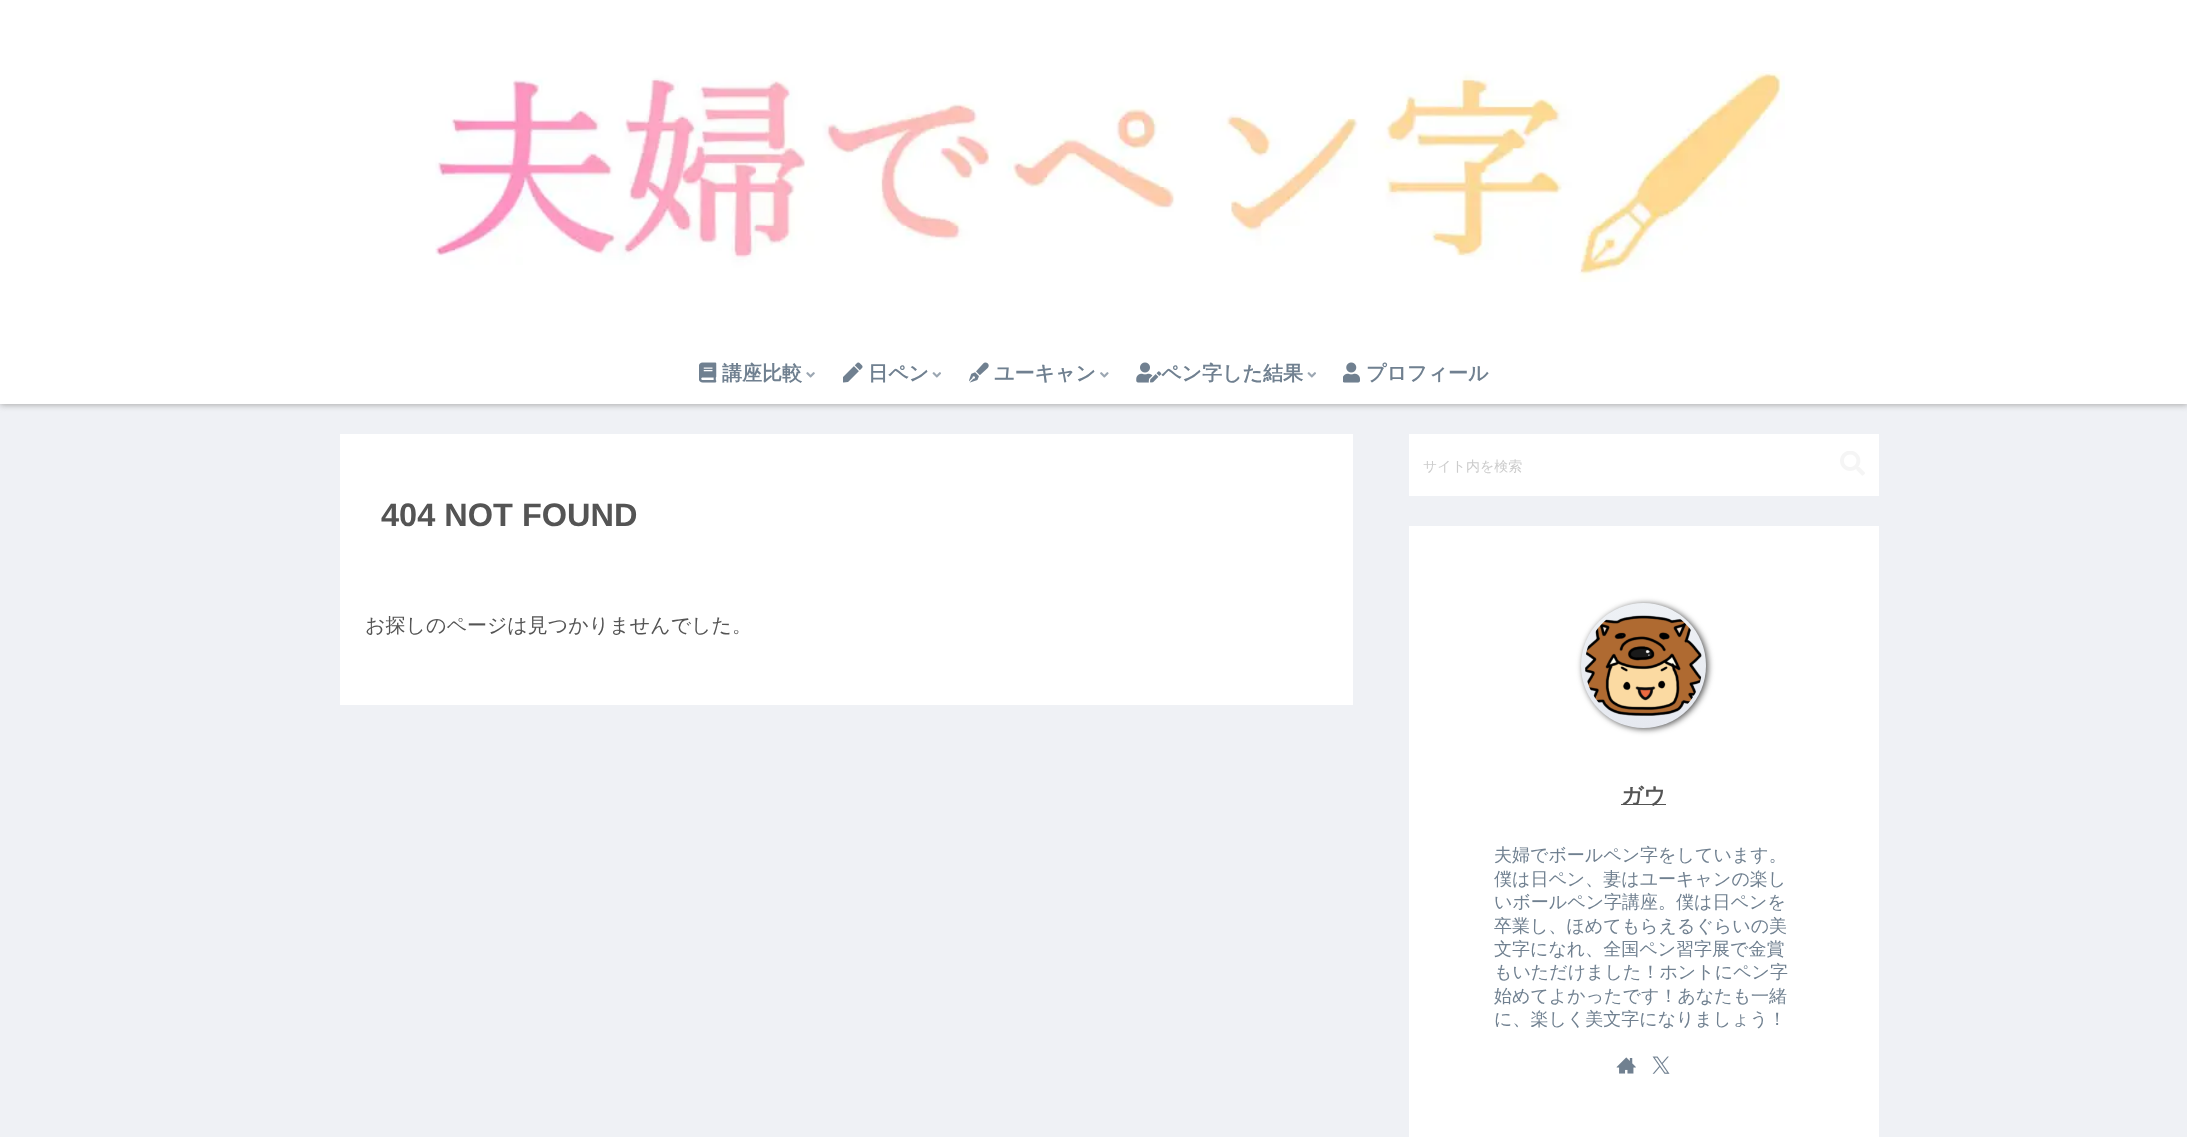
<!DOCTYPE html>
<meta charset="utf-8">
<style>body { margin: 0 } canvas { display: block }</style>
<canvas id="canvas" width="2187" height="1137"></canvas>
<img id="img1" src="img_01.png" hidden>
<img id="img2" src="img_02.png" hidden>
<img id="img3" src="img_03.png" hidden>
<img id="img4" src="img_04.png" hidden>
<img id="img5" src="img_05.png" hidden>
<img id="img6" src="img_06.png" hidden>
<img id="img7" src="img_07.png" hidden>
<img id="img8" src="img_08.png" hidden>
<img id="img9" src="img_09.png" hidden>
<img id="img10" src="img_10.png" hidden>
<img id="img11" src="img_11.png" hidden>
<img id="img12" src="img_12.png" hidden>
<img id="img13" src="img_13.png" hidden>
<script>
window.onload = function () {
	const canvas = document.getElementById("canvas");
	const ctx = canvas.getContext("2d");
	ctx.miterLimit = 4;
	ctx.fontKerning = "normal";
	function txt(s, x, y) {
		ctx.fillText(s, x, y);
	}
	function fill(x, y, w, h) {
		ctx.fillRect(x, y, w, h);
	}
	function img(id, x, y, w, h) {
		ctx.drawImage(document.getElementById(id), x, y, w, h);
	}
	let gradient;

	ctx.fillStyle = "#EFF1F5";
	fill(0, 0, 2187, 1137);
	ctx.fillStyle = "#A9A9A9";
	ctx.filter = "blur(3px)";
	ctx.beginPath();
	ctx.rect(0, 1, 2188, 404);
	ctx.fill();
	ctx.filter = "none";
	ctx.fillStyle = "#FFFFFF";
	fill(0, 0, 2187, 404);
	img("img1", 435, 71, 1350, 211);
	img("img2", 699, 362, 18, 21);
	img("img3", 806, 372, 9, 6);
	img("img4", 843, 362, 20, 21);
	img("img5", 932, 372, 9, 6);
	img("img6", 969, 362, 20, 21);
	img("img7", 1100, 372, 9, 6);
	img("img8", 1136, 362, 26, 21);
	img("img5", 1307, 372, 9, 6);
	img("img9", 1343, 362, 17, 21);
	fill(340, 434, 1013, 271);
	fill(1409, 434, 470, 62);
	img("img10", 1840, 451, 25, 25);
	fill(1409, 526, 470, 611);
	ctx.fillStyle = "#545454";
	ctx.filter = "blur(3px)";
	ctx.beginPath();
	ctx.roundRect(1583, 604, 125, 125, 62.5);
	ctx.fill();
	ctx.filter = "none";
	gradient = ctx.createLinearGradient(1644, 728, 1644, 603);
	gradient.addColorStop(0, "#E6E9F0");
	gradient.addColorStop(1, "#EEF1F5");
	ctx.fillStyle = gradient;
	ctx.beginPath();
	ctx.arc(1643.5, 665.5, 62.5, 0, Math.PI * 2);
	ctx.fill();
	img("img11", 1585, 615, 117, 101);
	ctx.fillStyle = "#545454";
	fill(1621, 804, 45, 1);
	img("img12", 1616, 1057, 20, 17);
	img("img13", 1652, 1056, 18, 18);
	ctx.font = "bold 20px WenQuanYi Zen Hei";
	ctx.fillStyle = "#708090";
	txt("講座比較", 722, 380);
	txt("日ペン", 868, 380);
	txt("ユーキャン", 994, 380);
	txt("ペン字した結果", 1161, 380);
	txt("プロフィール", 1366, 380);
	ctx.font = "bold 32.5px Liberation Sans";
	ctx.fillStyle = "#545454";
	txt("404 NOT FOUND", 381, 526);
	ctx.font = "500 20px WenQuanYi Zen Hei";
	txt("お探しのページは見つかりませんでした。", 365, 632);
	ctx.font = "500 14px WenQuanYi Zen Hei";
	ctx.fillStyle = "#CCCCCC";
	txt("サイト内を検索", 1423, 471);
	ctx.font = "bold 22px WenQuanYi Zen Hei";
	ctx.fillStyle = "#545454";
	txt("ガウ", 1621, 803);
	ctx.font = "500 18px WenQuanYi Zen Hei";
	ctx.fillStyle = "#708090";
	txt("夫婦でボールペン字をしています。", 1494, 861);
	txt("僕は日ペン、妻はユーキャンの楽し", 1494, 885);
	txt("いボールペン字講座。僕は日ペンを", 1494, 908);
	txt("卒業し、ほめてもらえるぐらいの美", 1494, 932);
	txt("文字になれ、全国ペン習字展で金賞", 1494, 955);
	txt("もいただけました！ホントにペン字", 1494, 978);
	txt("始めてよかったです！あなたも一緒", 1494, 1002);
	txt("に、楽しく美文字になりましょう！", 1494, 1025);
};
</script>
